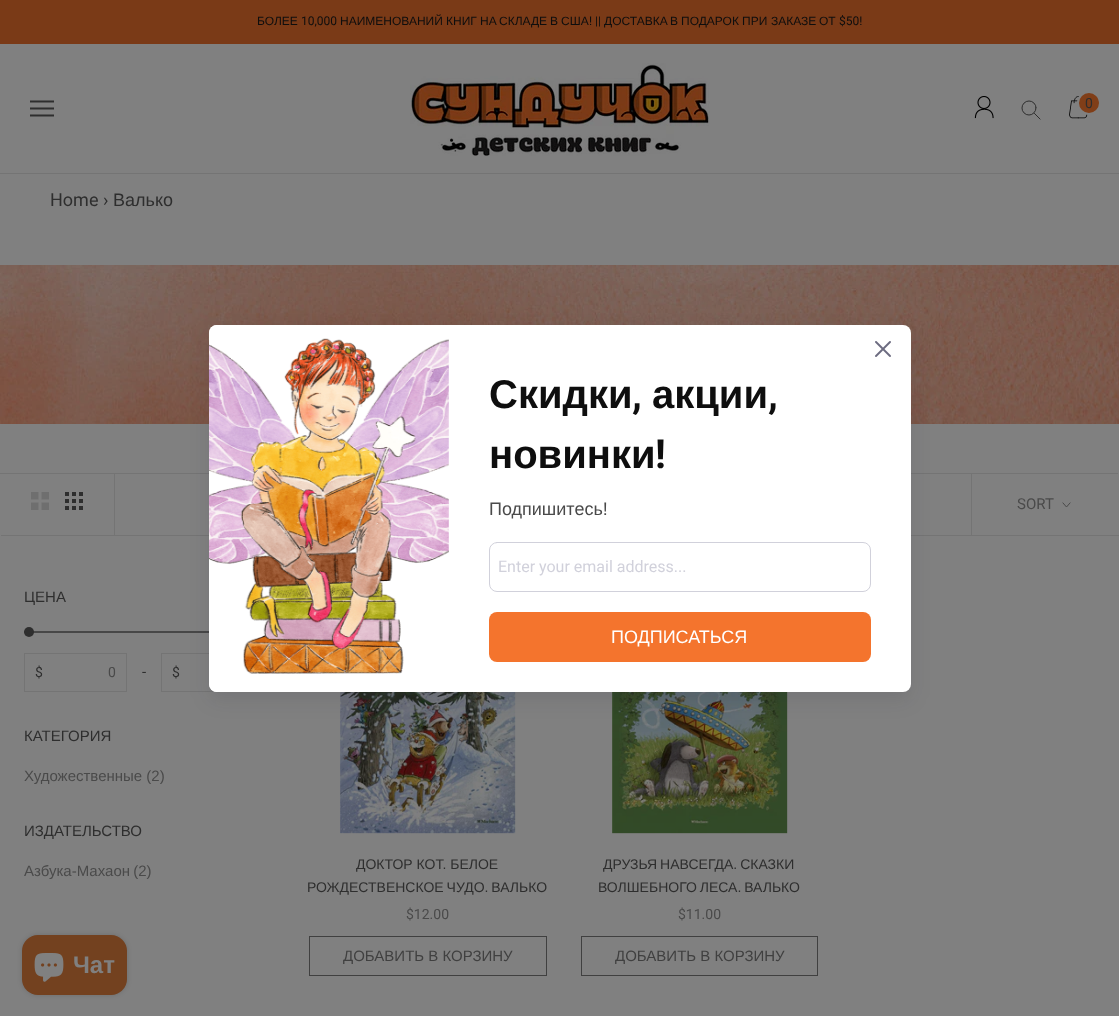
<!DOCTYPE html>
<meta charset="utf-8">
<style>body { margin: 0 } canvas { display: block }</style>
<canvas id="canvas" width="1119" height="1016"></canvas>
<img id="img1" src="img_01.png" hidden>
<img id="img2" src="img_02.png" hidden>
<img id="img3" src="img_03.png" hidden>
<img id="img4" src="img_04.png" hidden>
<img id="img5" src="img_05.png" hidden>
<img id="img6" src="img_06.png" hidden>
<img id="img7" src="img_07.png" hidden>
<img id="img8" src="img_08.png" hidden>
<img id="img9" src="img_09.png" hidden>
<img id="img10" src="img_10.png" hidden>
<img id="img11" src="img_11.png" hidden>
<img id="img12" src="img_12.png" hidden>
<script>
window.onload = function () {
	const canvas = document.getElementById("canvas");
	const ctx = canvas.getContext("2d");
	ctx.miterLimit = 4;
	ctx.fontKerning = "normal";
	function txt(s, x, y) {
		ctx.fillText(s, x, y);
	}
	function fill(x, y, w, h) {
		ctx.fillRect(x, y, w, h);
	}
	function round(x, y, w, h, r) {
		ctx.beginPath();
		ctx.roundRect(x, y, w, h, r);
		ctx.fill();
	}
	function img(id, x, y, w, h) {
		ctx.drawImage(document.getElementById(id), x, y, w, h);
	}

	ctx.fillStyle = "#808080";
	fill(0, 0, 1119, 1016);
	ctx.fillStyle = "#7A3A17";
	fill(0, 0, 1119, 44);
	ctx.fillStyle = "#747474";
	fill(0, 173, 1119, 1);
	img("img1", 30, 100, 24, 17);
	img("img2", 410, 63, 300, 93);
	img("img3", 974, 96, 20, 23);
	ctx.beginPath();
	ctx.moveTo(1040, 119);
	ctx.lineTo(1034.5, 113.5);
	ctx.strokeStyle = "#2E2E2E";
	ctx.lineCap = "square";
	ctx.stroke();
	ctx.beginPath();
	ctx.arc(1029, 108, 7, 0, Math.PI * 2);
	ctx.stroke();
	img("img4", 1069, 96, 19, 23);
	ctx.fillStyle = "#803E18";
	ctx.beginPath();
	ctx.arc(1089, 103, 11, 0, Math.PI * 2);
	ctx.fill();
	ctx.strokeStyle = "#808080";
	ctx.lineWidth = 2;
	ctx.stroke();
	img("img5", 0, 265, 1119, 159);
	ctx.fillStyle = "#747474";
	ctx.beginPath();
	ctx.moveTo(-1, 473);
	ctx.lineTo(-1, 534);
	ctx.lineTo(0, 534);
	ctx.lineTo(0, 474);
	ctx.lineTo(1118, 474);
	ctx.lineTo(1118, 473);
	ctx.closePath();
	ctx.fill();
	ctx.beginPath();
	ctx.moveTo(1, 535);
	ctx.lineTo(1, 536);
	ctx.lineTo(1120, 536);
	ctx.lineTo(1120, 475);
	ctx.lineTo(1119, 475);
	ctx.lineTo(1119, 535);
	ctx.closePath();
	ctx.fill();
	fill(114, 474, 1, 61);
	img("img6", 31, 492, 18, 18);
	img("img7", 65, 492, 18, 18);
	fill(971, 474, 1, 61);
	ctx.beginPath();
	ctx.moveTo(1070, 503);
	ctx.lineTo(1066.5, 507);
	ctx.lineTo(1063, 503);
	ctx.strokeStyle = "#4A4A4A";
	ctx.lineWidth = 1;
	ctx.stroke();
	ctx.fillStyle = "#474747";
	round(24, 631, 240, 2, 1);
	ctx.fillStyle = "#2E2E2E";
	ctx.beginPath();
	ctx.arc(29, 632, 5, 0, Math.PI * 2);
	ctx.fill();
	ctx.strokeStyle = "#747474";
	ctx.strokeRect(24.5, 653.5, 102, 38);
	ctx.strokeRect(161.5, 653.5, 102, 38);
	img("img8", 340, 692, 176, 142);
	ctx.strokeStyle = "#404040";
	ctx.strokeRect(309.5, 936.5, 237, 39);
	img("img9", 612, 692, 176, 142);
	ctx.strokeRect(581.5, 936.5, 236, 39);
	ctx.fillStyle = "rgba(18, 17, 39, 0.1)";
	ctx.filter = "blur(10px)";
	ctx.beginPath();
	ctx.roundRect(209, 333, 702, 367, 8);
	ctx.fill();
	ctx.filter = "none";
	ctx.fillStyle = "#FFFFFF";
	round(209, 325, 702, 367, 8);
	ctx.beginPath();
	ctx.roundRect(209, 325, 240, 367, [8, 0, 0, 8]);
	ctx.fill();
	img("img10", 209, 338, 240, 336);
	img("img11", 875, 341, 16, 16);
	ctx.beginPath();
	ctx.roundRect(489.5, 542.5, 381, 49, 7.5);
	ctx.strokeStyle = "#D1D1DB";
	ctx.stroke();
	ctx.fillStyle = "#F4742D";
	round(489, 612, 382, 50, 8);
	ctx.fillStyle = "rgba(0, 0, 0, 0.15)";
	ctx.filter = "blur(2.5px)";
	ctx.beginPath();
	ctx.roundRect(22, 935, 105, 60, 16);
	ctx.fill();
	ctx.filter = "none";
	ctx.fillStyle = "#73411F";
	round(22, 935, 105, 60, 16);
	img("img12", 34, 953, 30, 29);
	ctx.font = "12px Liberation Sans";
	ctx.fillStyle = "#0E0E0E";
	txt("БОЛЕЕ", 257, 25);
	ctx.font = "12px Roboto";
	txt("10,000", 301, 25);
	ctx.font = "12px Liberation Sans";
	txt("НАИМЕНОВАНИЙ", 340, 25);
	txt("КНИГ", 446, 25);
	txt("НА", 480, 25);
	txt("СКЛАДЕ", 499, 25);
	txt("В", 550, 25);
	txt("США", 561, 25);
	ctx.font = "12px Roboto";
	txt("! ||", 589, 25);
	ctx.font = "12px Liberation Sans";
	txt("ДОСТАВКА", 604, 25);
	txt("В", 670, 25);
	txt("ПОДАРОК", 681, 25);
	txt("ПРИ", 742, 25);
	txt("ЗАКАЗЕ", 771, 25);
	txt("ОТ", 819, 25);
	ctx.font = "12px Roboto";
	txt("$50!", 839, 25);
	ctx.font = "14px Roboto";
	ctx.fillStyle = "#2E2E2E";
	txt("0", 1085, 108);
	ctx.font = "18px Roboto";
	txt("Home ›", 50, 206);
	ctx.font = "18px Liberation Sans";
	txt("Валько", 113, 206);
	ctx.font = "15px Roboto";
	ctx.fillStyle = "#4A4A4A";
	txt("SORT", 1017, 509);
	ctx.font = "15px Liberation Sans";
	ctx.fillStyle = "#2E2E2E";
	txt("ЦЕНА", 24, 602);
	ctx.font = "14px Roboto";
	txt("$", 35, 677);
	ctx.fillStyle = "#4A4A4A";
	txt("0", 108, 677);
	ctx.font = "15px Roboto";
	ctx.fillStyle = "#2E2E2E";
	txt("-", 142, 677);
	ctx.font = "14px Roboto";
	txt("$", 172, 677);
	ctx.font = "15px Liberation Sans";
	txt("КАТЕГОРИЯ", 24, 741);
	ctx.fillStyle = "#4A4A4A";
	txt("Художественные (2)", 24, 781);
	ctx.fillStyle = "#2E2E2E";
	txt("ИЗДАТЕЛЬСТВО", 24, 836);
	ctx.wordSpacing = "-1px";
	ctx.fillStyle = "#4A4A4A";
	txt("Азбука-Махаон (2)", 24, 876);
	ctx.wordSpacing = "0px";
	ctx.font = "14px Liberation Sans";
	ctx.fillStyle = "#2E2E2E";
	txt("ДОКТОР КОТ. БЕЛОЕ", 356, 869);
	ctx.wordSpacing = "-1px";
	txt("РОЖДЕСТВЕНСКОЕ ЧУДО. ВАЛЬКО", 307, 892);
	ctx.wordSpacing = "0px";
	ctx.font = "14px Roboto";
	ctx.fillStyle = "#4A4A4A";
	txt("$12.00", 406, 919);
	ctx.font = "15px Liberation Sans";
	ctx.fillStyle = "#404040";
	txt("ДОБАВИТЬ В КОРЗИНУ", 343, 961);
	ctx.wordSpacing = "-1px";
	ctx.font = "14px Liberation Sans";
	ctx.fillStyle = "#2E2E2E";
	txt("ДРУЗЬЯ НАВСЕГДА. СКАЗКИ", 603, 869);
	txt("ВОЛШЕБНОГО ЛЕСА. ВАЛЬКО", 598, 892);
	ctx.wordSpacing = "0px";
	ctx.font = "14px Roboto";
	ctx.fillStyle = "#4A4A4A";
	txt("$11.00", 678, 919);
	ctx.font = "15px Liberation Sans";
	ctx.fillStyle = "#404040";
	txt("ДОБАВИТЬ В КОРЗИНУ", 615, 961);
	ctx.font = "bold 40px Liberation Sans";
	ctx.fillStyle = "#0E0E0E";
	txt("Скидки", 489, 408);
	ctx.font = "bold 40px Roboto";
	txt(",", 632, 408);
	ctx.font = "bold 40px Liberation Sans";
	txt("акции", 652, 408);
	ctx.font = "bold 40px Roboto";
	txt(",", 768, 408);
	ctx.font = "bold 40px Liberation Sans";
	txt("новинки", 489, 468);
	ctx.font = "bold 40px Roboto";
	txt("!", 655, 468);
	ctx.font = "18px Liberation Sans";
	ctx.fillStyle = "#4A4A4A";
	txt("Подпишитесь!", 489, 515);
	ctx.font = "16px Roboto";
	ctx.fillStyle = "#D1D1DB";
	txt("Enter your email address...", 498, 572);
	ctx.font = "18px Liberation Sans";
	ctx.fillStyle = "#FFFFFF";
	txt("ПОДПИСАТЬСЯ", 611, 643);
	ctx.font = "bold 24px Liberation Sans";
	ctx.fillStyle = "#808080";
	txt("Чат", 73, 973);
};
</script>
